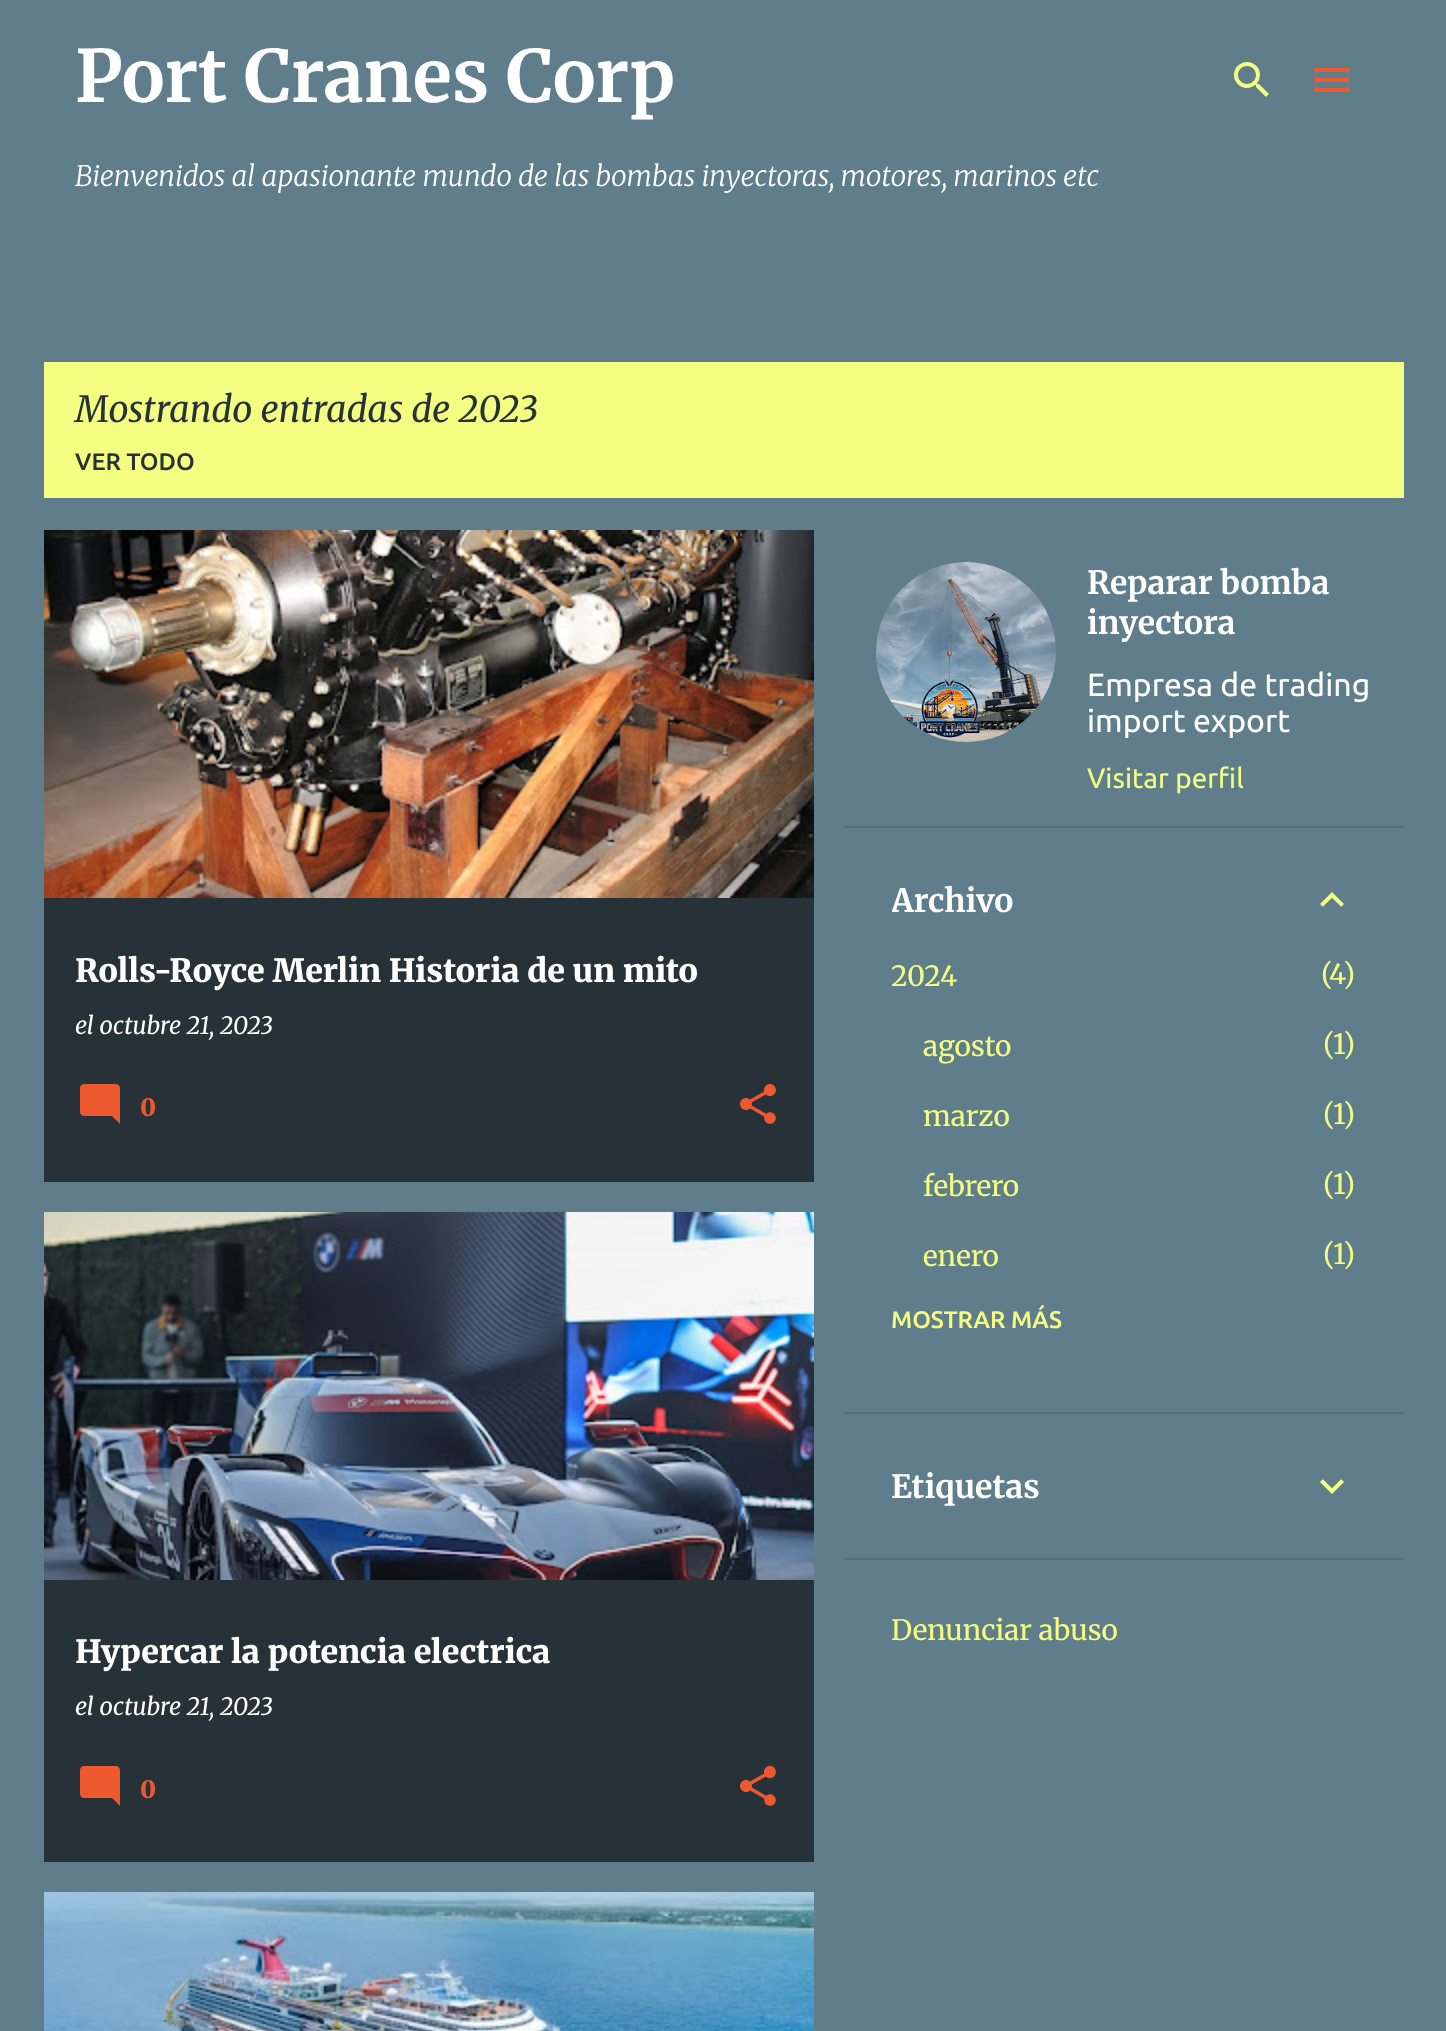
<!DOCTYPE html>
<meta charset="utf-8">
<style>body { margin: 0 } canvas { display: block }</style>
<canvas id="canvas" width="1446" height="2031"></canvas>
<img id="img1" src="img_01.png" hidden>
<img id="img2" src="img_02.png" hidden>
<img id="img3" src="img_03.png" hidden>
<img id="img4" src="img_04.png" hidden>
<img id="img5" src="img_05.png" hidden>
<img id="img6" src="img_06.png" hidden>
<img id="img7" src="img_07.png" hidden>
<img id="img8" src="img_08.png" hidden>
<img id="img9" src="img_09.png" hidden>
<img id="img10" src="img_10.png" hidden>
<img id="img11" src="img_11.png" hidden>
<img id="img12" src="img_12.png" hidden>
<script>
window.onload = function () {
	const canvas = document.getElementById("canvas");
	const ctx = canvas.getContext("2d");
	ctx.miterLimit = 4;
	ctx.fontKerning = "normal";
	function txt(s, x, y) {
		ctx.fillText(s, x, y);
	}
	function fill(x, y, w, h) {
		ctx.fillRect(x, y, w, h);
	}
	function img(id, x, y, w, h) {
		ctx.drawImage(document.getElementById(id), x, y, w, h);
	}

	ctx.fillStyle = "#607D8B";
	fill(0, 0, 1446, 2031);
	img("img1", 1234, 62, 35, 35);
	img("img2", 1314, 68, 36, 24);
	ctx.fillStyle = "#F4FF81";
	fill(44, 362, 1360, 136);
	ctx.fillStyle = "#263238";
	fill(44, 898, 770, 284);
	img("img3", 44, 530, 770, 368);
	img("img4", 80, 1084, 40, 40);
	img("img5", 740, 1084, 36, 40);
	fill(44, 1580, 770, 282);
	img("img6", 44, 1212, 770, 368);
	img("img7", 80, 1766, 40, 40);
	img("img8", 740, 1766, 36, 40);
	img("img9", 44, 1892, 770, 139);
	img("img10", 876, 562, 180, 180);
	ctx.fillStyle = "#556E7B";
	fill(844, 826, 560, 2);
	img("img11", 1320, 892, 24, 15);
	fill(844, 1412, 560, 2);
	img("img12", 1320, 1479, 24, 15);
	fill(844, 1558, 560, 2);
	ctx.font = "bold 72px Merriweather";
	ctx.fillStyle = "#FFFFFF";
	txt("Port Cranes Corp", 75, 102);
	ctx.font = "italic 300 28px Merriweather";
	txt("Bienvenidos al apasionante mundo de las bombas inyectoras, motores, marinos etc", 75, 186);
	ctx.font = "italic 36px Merriweather";
	ctx.fillStyle = "#263238";
	txt("Mostrando entradas de 2023", 75, 422);
	ctx.font = "500 24px Ubuntu";
	txt("VER TODO", 75, 470);
	ctx.font = "900 32px Merriweather";
	ctx.fillStyle = "#FFFFFF";
	txt("Rolls-Royce Merlin Historia de un mito", 75, 982);
	ctx.font = "italic 24px Merriweather";
	txt("el octubre 21, 2023", 75, 1034);
	ctx.font = "900 24px Merriweather";
	ctx.fillStyle = "#EE582E";
	txt("0", 140, 1116);
	ctx.font = "900 32px Merriweather";
	ctx.fillStyle = "#FFFFFF";
	txt("Hypercar la potencia electrica", 75, 1663);
	ctx.font = "italic 24px Merriweather";
	txt("el octubre 21, 2023", 75, 1715);
	ctx.font = "900 24px Merriweather";
	ctx.fillStyle = "#EE582E";
	txt("0", 140, 1798);
	ctx.font = "bold 32px Merriweather";
	ctx.fillStyle = "#FFFFFF";
	txt("Reparar bomba", 1087, 594);
	txt("inyectora", 1087, 634);
	ctx.font = "32px Ubuntu";
	txt("Empresa de trading", 1087, 696);
	txt("import export", 1087, 732);
	ctx.font = "28px Ubuntu";
	ctx.fillStyle = "#F4FF81";
	txt("Visitar perfil", 1087, 788);
	ctx.save();
	ctx.beginPath();
	ctx.rect(892, 880, 416, 40);
	ctx.clip();
	ctx.font = "bold 32px Merriweather";
	ctx.fillStyle = "#FFFFFF";
	txt("Archivo", 891, 912);
	ctx.restore();
	ctx.font = "28px Merriweather";
	txt("2024", 891, 986);
	txt("(", 1321, 984);
	txt("4", 1329, 984);
	txt(")", 1343, 984);
	txt("agosto", 923, 1056);
	txt("(", 1323, 1054);
	txt("1", 1333, 1054);
	txt(")", 1343, 1054);
	txt("marzo", 923, 1126);
	txt("(", 1323, 1124);
	txt("1", 1333, 1124);
	txt(")", 1343, 1124);
	txt("febrero", 923, 1196);
	txt("(", 1323, 1194);
	txt("1", 1333, 1194);
	txt(")", 1343, 1194);
	txt("enero", 923, 1266);
	txt("(", 1323, 1264);
	txt("1", 1333, 1264);
	txt(")", 1343, 1264);
	ctx.font = "500 24px Ubuntu";
	txt("MOSTRAR MÁS", 891, 1328);
	ctx.font = "bold 32px Merriweather";
	ctx.fillStyle = "#FFFFFF";
	txt("Etiquetas", 891, 1498);
	ctx.font = "28px Merriweather";
	ctx.fillStyle = "#F4FF81";
	txt("Denunciar abuso", 891, 1640);
};
</script>
